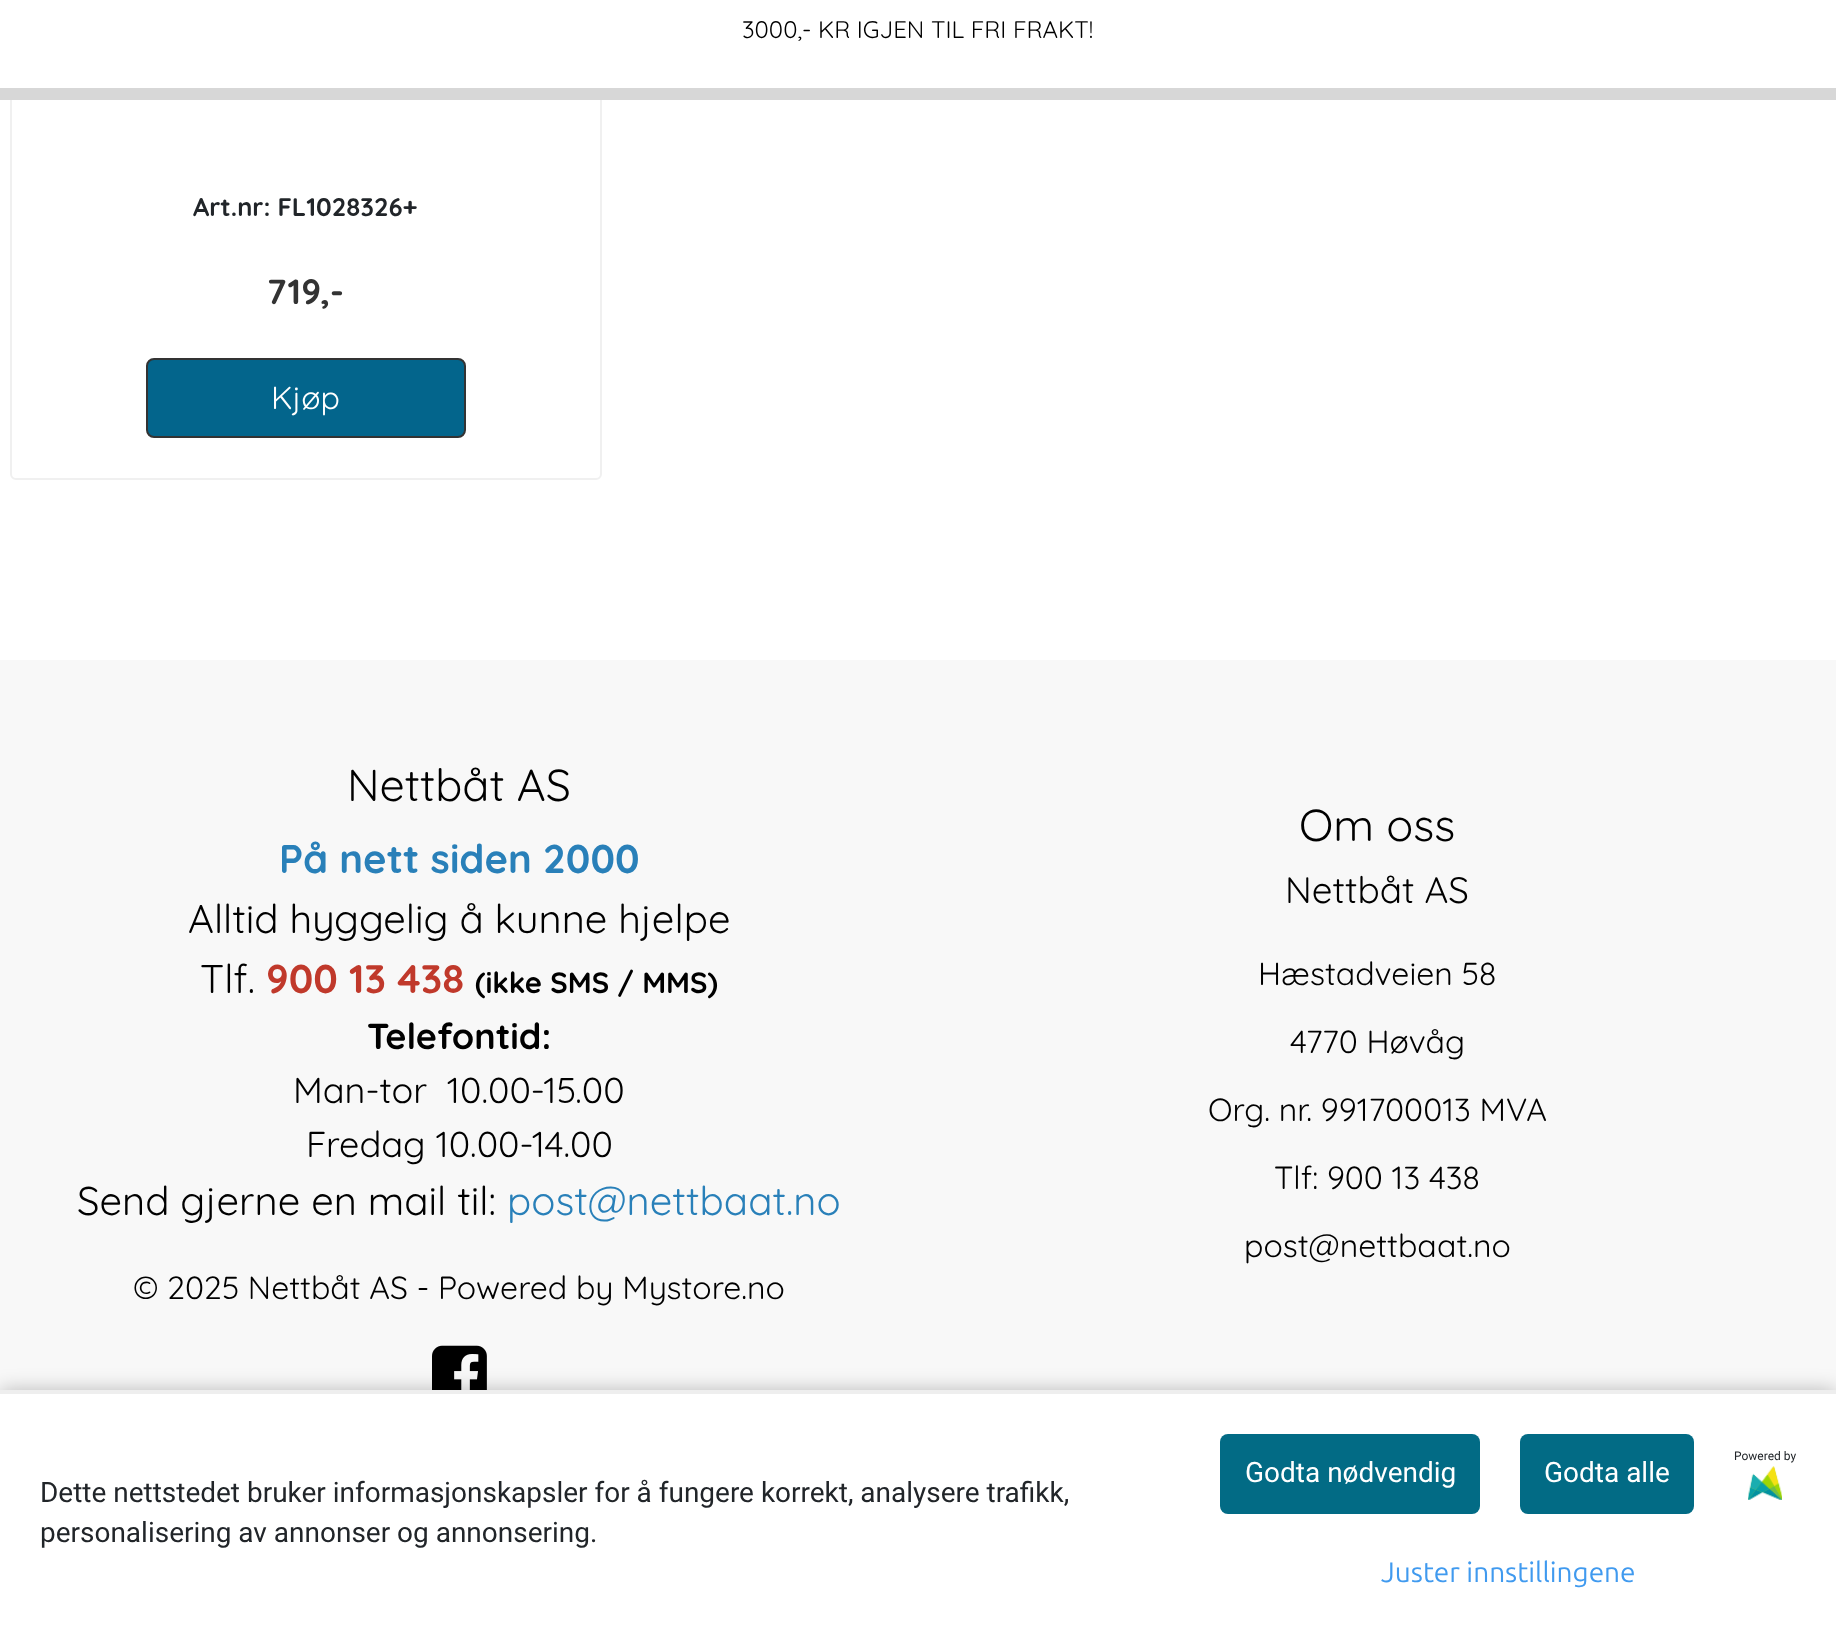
<!DOCTYPE html>
<meta charset="utf-8">
<style>body { margin: 0 } canvas { display: block }</style>
<canvas id="canvas" width="1836" height="1634"></canvas>
<img id="img1" src="img_01.png" hidden>
<img id="img2" src="img_02.png" hidden>
<script>
window.onload = function () {
	const canvas = document.getElementById("canvas");
	const ctx = canvas.getContext("2d");
	ctx.miterLimit = 4;
	ctx.fontKerning = "normal";
	function txt(s, x, y) {
		ctx.fillText(s, x, y);
	}
	function fill(x, y, w, h) {
		ctx.fillRect(x, y, w, h);
	}
	function round(x, y, w, h, r) {
		ctx.beginPath();
		ctx.roundRect(x, y, w, h, r);
		ctx.fill();
	}
	function img(id, x, y, w, h) {
		ctx.drawImage(document.getElementById(id), x, y, w, h);
	}

	ctx.fillStyle = "#FFFFFF";
	fill(0, 0, 1836, 1634);
	ctx.beginPath();
	ctx.roundRect(11, -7, 590, 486, 5);
	ctx.strokeStyle = "#F0F0F0";
	ctx.lineWidth = 2;
	ctx.stroke();
	fill(10, 0, 592, 88);
	ctx.fillStyle = "#D7D7D7";
	fill(0, 88, 1836, 12);
	ctx.fillStyle = "#03658C";
	ctx.beginPath();
	ctx.roundRect(147, 359, 318, 78, 7);
	ctx.fill();
	ctx.strokeStyle = "#333333";
	ctx.stroke();
	ctx.fillStyle = "#F8F8F8";
	fill(0, 660, 1836, 730);
	img("img1", 432, 1345, 55, 45);
	ctx.fillStyle = "rgba(0, 0, 0, 0.25)";
	ctx.filter = "blur(10px)";
	ctx.beginPath();
	ctx.rect(0, 1390, 1836, 244);
	ctx.fill();
	ctx.filter = "none";
	ctx.fillStyle = "#FFFFFF";
	fill(0, 1394, 1836, 240);
	ctx.fillStyle = "#EEEEEE";
	fill(0, 1390, 1836, 4);
	img("img2", 1748, 1466, 34, 34);
	ctx.fillStyle = "#026B85";
	round(1220, 1434, 260, 80, 8);
	round(1520, 1434, 174, 80, 8);
	ctx.font = "24px Quicksand";
	ctx.fillStyle = "#000000";
	txt("3000,- KR IGJEN TIL FRI FRAKT!", 742, 38);
	ctx.font = "bold 25.5px Quicksand";
	ctx.fillStyle = "#212529";
	txt("Art.nr: FL1028326+", 193, 216);
	ctx.font = "bold 35px Quicksand";
	ctx.fillStyle = "#333333";
	txt("719,-", 267, 304);
	ctx.font = "32px Quicksand";
	ctx.fillStyle = "#FFFFFF";
	txt("Kjøp", 271, 409);
	ctx.font = "44.75px Quicksand";
	ctx.fillStyle = "#000000";
	txt("Nettbåt AS", 347, 801);
	ctx.font = "bold 40px Quicksand";
	ctx.fillStyle = "#2980B9";
	txt("På nett siden 2000", 279, 873);
	ctx.font = "40px Quicksand";
	ctx.fillStyle = "#000000";
	txt("Alltid hyggelig å kunne hjelpe", 188, 933);
	txt("Tlf.", 200, 993);
	ctx.font = "bold 40px Quicksand";
	ctx.fillStyle = "#C0392B";
	txt("900 13 438", 266, 993);
	ctx.font = "bold 29.25px Quicksand";
	ctx.fillStyle = "#000000";
	txt("(ikke SMS / MMS)", 475, 993);
	ctx.font = "bold 36px Quicksand";
	txt("Telefontid:", 367, 1049);
	ctx.font = "36px Quicksand";
	txt("Man-tor  10.00-15.00", 293, 1103);
	txt("Fredag 10.00-14.00", 306, 1157);
	ctx.font = "40px Quicksand";
	txt("Send gjerne en mail til:", 77, 1215);
	ctx.fillStyle = "#2980B9";
	txt("post@nettbaat.no", 507, 1215);
	ctx.font = "32px Quicksand";
	ctx.fillStyle = "#000000";
	txt("© 2025 Nettbåt AS - Powered by Mystore.no", 133, 1299);
	ctx.font = "44.75px Quicksand";
	txt("Om oss", 1299, 841);
	ctx.font = "36.75px Quicksand";
	txt("Nettbåt AS", 1285, 903);
	ctx.font = "32px Quicksand";
	txt("Hæstadveien 58", 1258, 985);
	txt("4770 Høvåg", 1290, 1053);
	txt("Org. nr. 991700013 MVA", 1208, 1121);
	txt("Tlf: 900 13 438", 1274, 1189);
	txt("post@nettbaat.no", 1244, 1257);
	ctx.font = "28px Roboto";
	ctx.fillStyle = "#212529";
	txt("Dette nettstedet bruker informasjonskapsler for å fungere korrekt, analysere trafikk,", 40, 1502);
	txt("personalisering av annonser og annonsering.", 40, 1542);
	ctx.font = "12px Roboto";
	txt("Powered by", 1734, 1460);
	ctx.font = "28px Roboto";
	ctx.fillStyle = "#FFFFFF";
	txt("Godta nødvendig", 1245, 1482);
	txt("Godta alle", 1544, 1482);
	ctx.font = "28px Ubuntu";
	ctx.fillStyle = "#409AEF";
	txt("Juster innstillingene", 1381, 1582);
};
</script>
